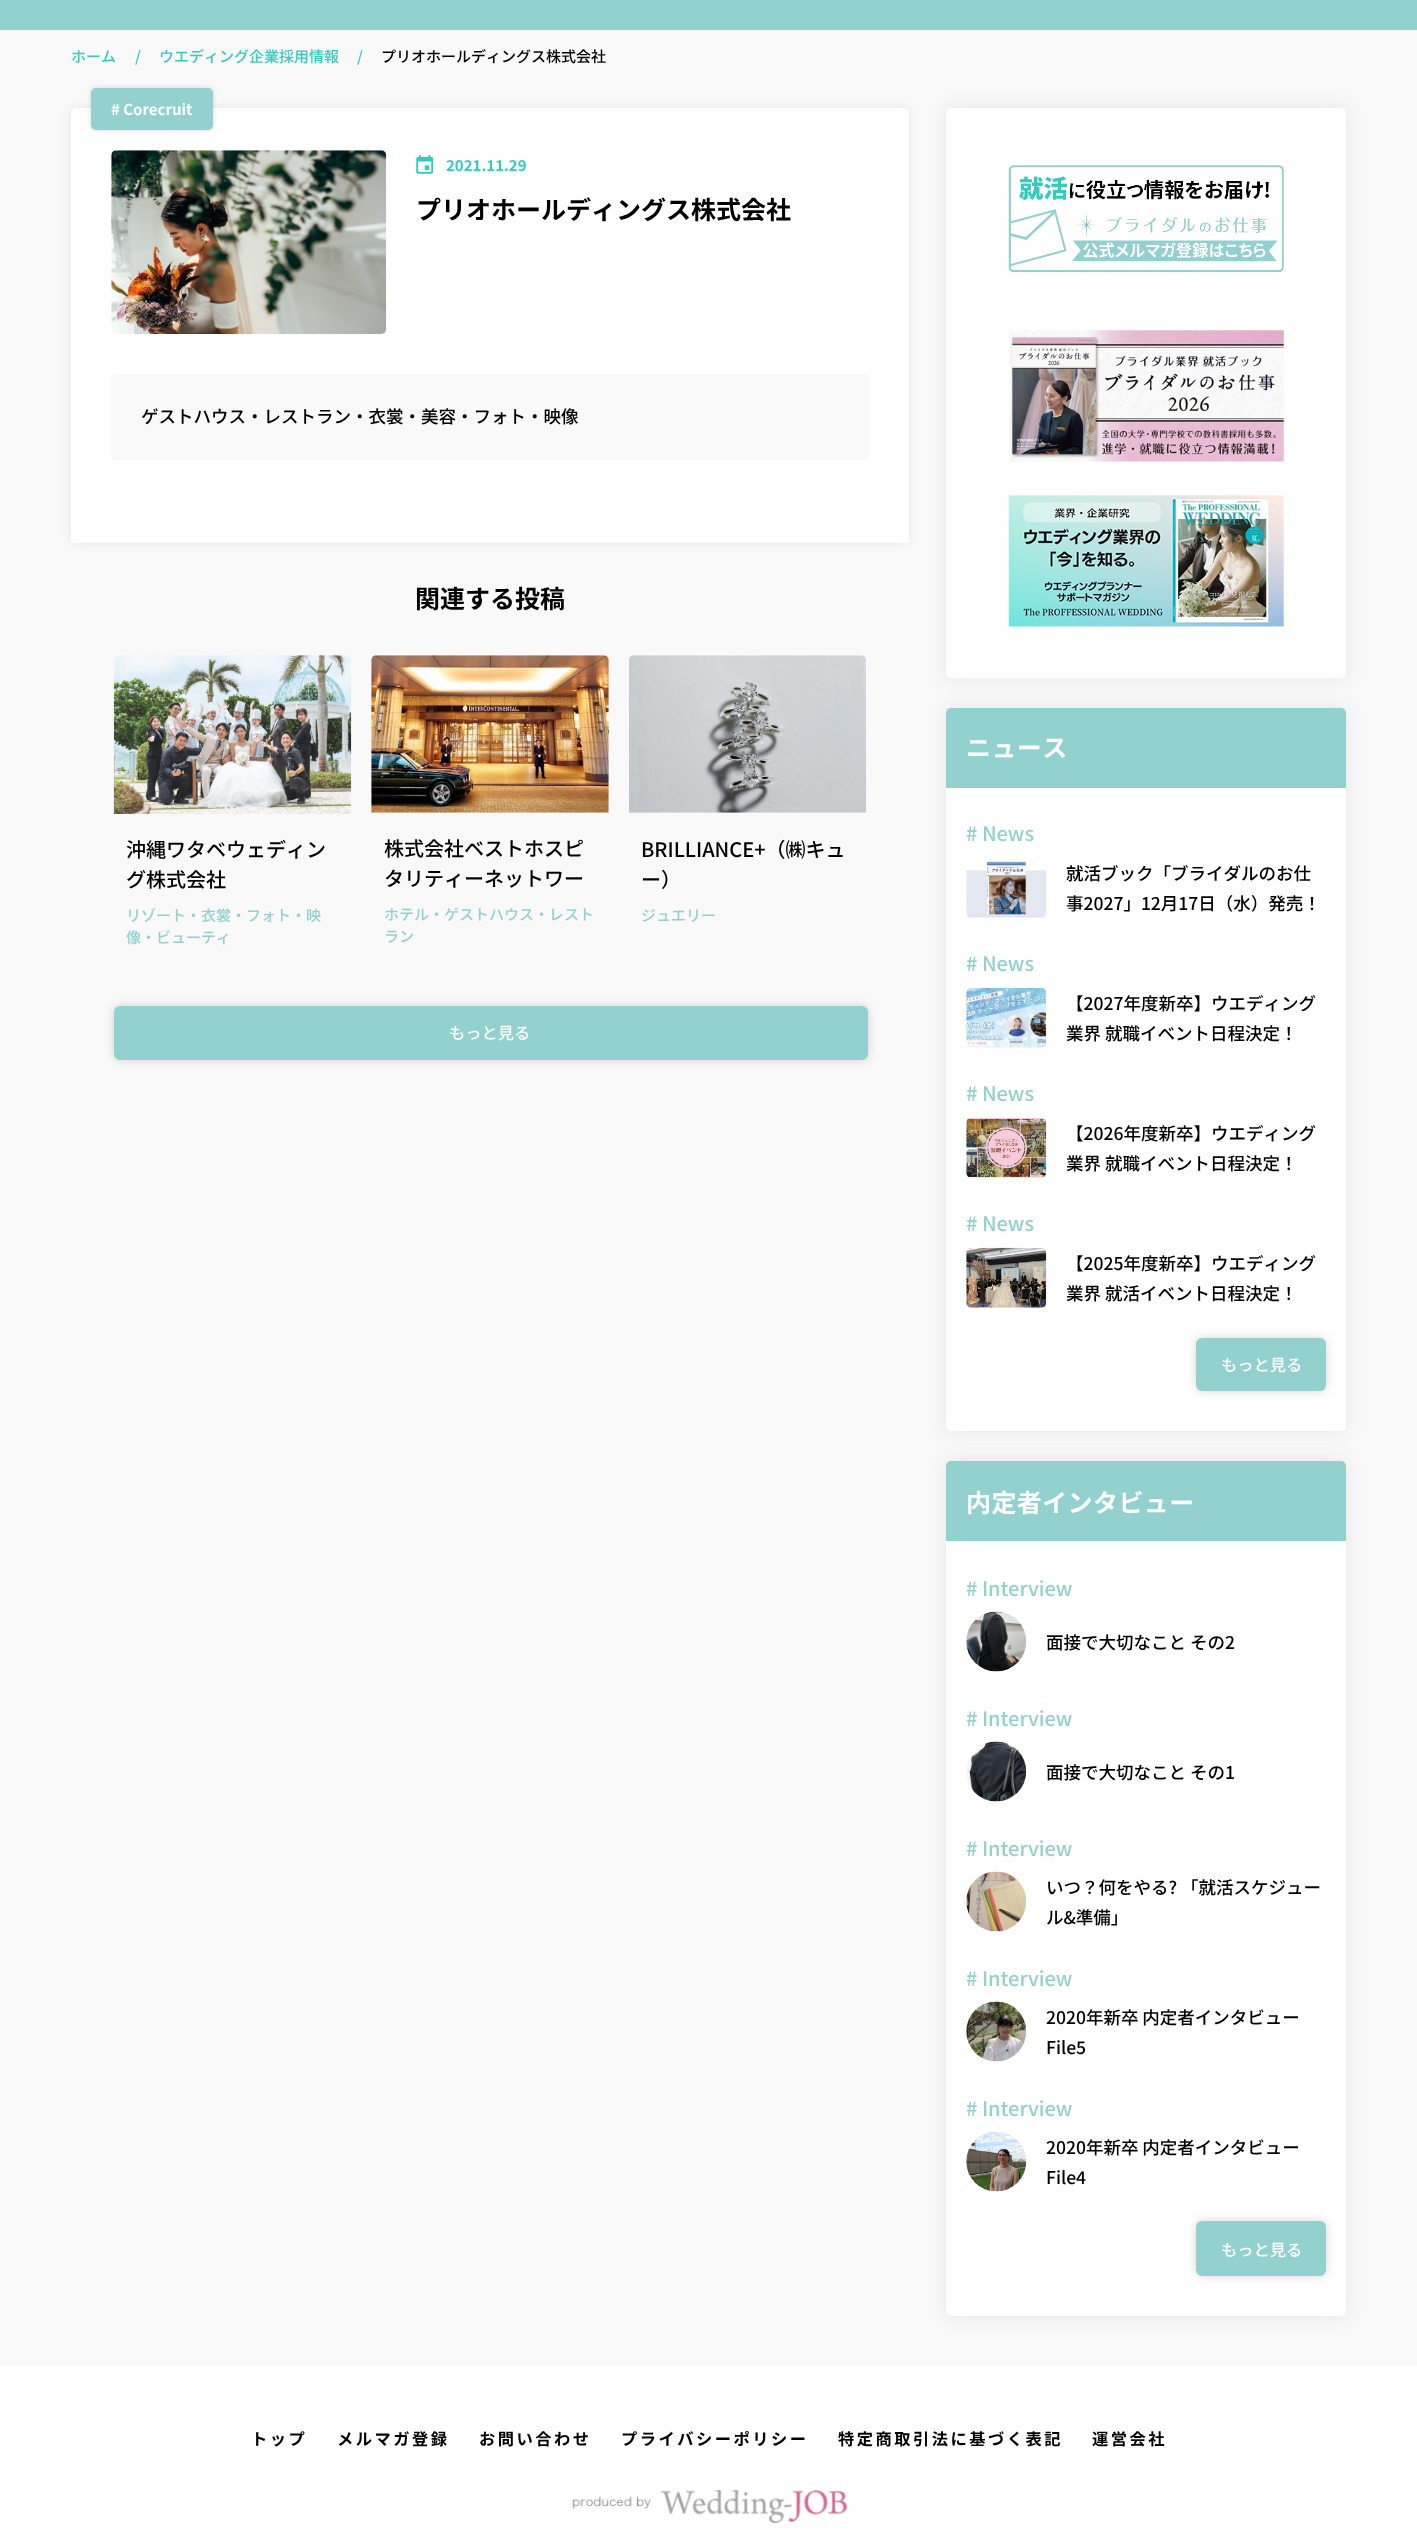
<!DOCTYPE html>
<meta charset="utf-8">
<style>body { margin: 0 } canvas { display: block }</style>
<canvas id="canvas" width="1417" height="2540"></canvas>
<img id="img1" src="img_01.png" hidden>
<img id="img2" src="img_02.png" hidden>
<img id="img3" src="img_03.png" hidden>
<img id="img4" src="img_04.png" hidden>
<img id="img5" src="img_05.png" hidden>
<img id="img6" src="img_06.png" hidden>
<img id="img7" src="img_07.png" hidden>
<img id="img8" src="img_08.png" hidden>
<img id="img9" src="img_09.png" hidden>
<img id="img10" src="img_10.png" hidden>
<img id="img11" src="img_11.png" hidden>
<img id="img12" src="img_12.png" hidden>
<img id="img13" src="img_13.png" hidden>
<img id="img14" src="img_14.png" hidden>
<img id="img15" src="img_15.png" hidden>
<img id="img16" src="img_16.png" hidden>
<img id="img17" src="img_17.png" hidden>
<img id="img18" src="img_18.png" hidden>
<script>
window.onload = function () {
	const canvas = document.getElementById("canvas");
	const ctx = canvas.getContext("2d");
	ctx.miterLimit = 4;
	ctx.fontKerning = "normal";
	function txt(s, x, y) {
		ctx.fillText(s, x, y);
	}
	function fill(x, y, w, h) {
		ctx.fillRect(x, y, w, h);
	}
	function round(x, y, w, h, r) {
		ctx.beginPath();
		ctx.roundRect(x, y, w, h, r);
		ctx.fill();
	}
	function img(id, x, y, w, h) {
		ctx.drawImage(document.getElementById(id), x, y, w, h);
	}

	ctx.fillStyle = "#F9F9FA";
	fill(0, 0, 1417, 2540);
	ctx.fillStyle = "#93D1CE";
	fill(0, 0, 1417, 30);
	ctx.fillStyle = "rgba(0, 0, 0, 0.08)";
	ctx.filter = "blur(5px)";
	ctx.beginPath();
	ctx.roundRect(71, 108, 838, 435, 5);
	ctx.fill();
	ctx.filter = "none";
	ctx.fillStyle = "#FFFFFF";
	ctx.beginPath();
	ctx.roundRect(71, 108, 838, 435, [5, 5, 0, 0]);
	ctx.fill();
	ctx.fillStyle = "rgba(0, 0, 0, 0.16)";
	ctx.filter = "blur(2.5px)";
	ctx.beginPath();
	ctx.roundRect(91, 88, 122, 42, 5);
	ctx.fill();
	ctx.filter = "none";
	ctx.fillStyle = "#93D1CE";
	round(91, 88, 122, 42, 5);
	img("img1", 111, 150, 276, 184);
	img("img2", 416, 155, 18, 19);
	ctx.fillStyle = "#F9F9FA";
	round(111, 374, 758, 86, 5);
	img("img3", 113, 655, 239, 159);
	img("img4", 371, 655, 238, 158);
	img("img5", 629, 655, 237, 158);
	ctx.fillStyle = "rgba(0, 0, 0, 0.16)";
	ctx.filter = "blur(5px)";
	ctx.beginPath();
	ctx.roundRect(114, 1006, 754, 54, 6);
	ctx.fill();
	ctx.filter = "none";
	ctx.fillStyle = "#93D1CE";
	round(114, 1006, 754, 54, 6);
	ctx.fillStyle = "rgba(0, 0, 0, 0.08)";
	ctx.filter = "blur(10px)";
	ctx.beginPath();
	ctx.roundRect(946, 108, 400, 570, 5);
	ctx.fill();
	ctx.filter = "none";
	ctx.fillStyle = "#FFFFFF";
	round(946, 108, 400, 570, 5);
	img("img6", 1008, 165, 276, 107);
	img("img7", 1009, 330, 275, 132);
	img("img8", 1008, 495, 276, 132);
	ctx.fillStyle = "rgba(0, 0, 0, 0.08)";
	ctx.filter = "blur(10px)";
	ctx.beginPath();
	ctx.roundRect(946, 708, 400, 723, 5);
	ctx.fill();
	ctx.filter = "none";
	ctx.fillStyle = "#FFFFFF";
	round(946, 708, 400, 723, 5);
	ctx.fillStyle = "#93D1CE";
	ctx.beginPath();
	ctx.roundRect(946, 708, 400, 80, [5, 5, 0, 0]);
	ctx.fill();
	img("img9", 966, 861, 80, 57);
	img("img10", 966, 987, 81, 61);
	img("img11", 966, 1118, 81, 60);
	img("img12", 966, 1247, 81, 61);
	ctx.fillStyle = "rgba(0, 0, 0, 0.16)";
	ctx.filter = "blur(5px)";
	ctx.beginPath();
	ctx.roundRect(1196, 1338, 130, 53, 6);
	ctx.fill();
	ctx.filter = "none";
	ctx.fillStyle = "#93D1CE";
	round(1196, 1338, 130, 53, 6);
	ctx.fillStyle = "rgba(0, 0, 0, 0.08)";
	ctx.filter = "blur(10px)";
	ctx.beginPath();
	ctx.roundRect(946, 1461, 400, 855, 5);
	ctx.fill();
	ctx.filter = "none";
	ctx.fillStyle = "#FFFFFF";
	round(946, 1461, 400, 855, 5);
	ctx.fillStyle = "#93D1CE";
	ctx.beginPath();
	ctx.roundRect(946, 1461, 400, 80, [5, 5, 0, 0]);
	ctx.fill();
	img("img13", 966, 1611, 61, 61);
	img("img14", 966, 1741, 61, 61);
	img("img15", 966, 1871, 61, 61);
	img("img16", 966, 2001, 61, 61);
	img("img17", 966, 2131, 61, 61);
	ctx.fillStyle = "rgba(0, 0, 0, 0.16)";
	ctx.filter = "blur(5px)";
	ctx.beginPath();
	ctx.roundRect(1196, 2221, 130, 55, 6);
	ctx.fill();
	ctx.filter = "none";
	ctx.fillStyle = "#93D1CE";
	round(1196, 2221, 130, 55, 6);
	ctx.fillStyle = "#FFFFFF";
	fill(0, 2366, 1417, 174);
	img("img18", 572, 2490, 276, 33);
	ctx.font = "500 15px Noto Sans JP";
	ctx.fillStyle = "#32CCBC";
	txt("ホーム", 71, 62);
	txt("/", 135, 62);
	txt("ウエディング企業採用情報", 159, 62);
	txt("/", 357, 62);
	ctx.fillStyle = "#000000";
	txt("プリオホールディングス株式会社", 381, 62);
	ctx.font = "bold 15px Noto Sans JP";
	ctx.fillStyle = "#FFFFFF";
	txt("# Corecruit", 111, 115);
	ctx.fillStyle = "#32CCBC";
	txt("2021.11.29", 446, 171);
	ctx.font = "bold 25px Noto Sans JP";
	ctx.fillStyle = "#000000";
	txt("プリオホールディングス株式会社", 416, 219);
	ctx.font = "500 17.5px Noto Sans JP";
	txt("ゲストハウス・レストラン・衣裳・美容・フォト・映像", 141, 423);
	ctx.font = "bold 25px Noto Sans JP";
	txt("関連する投稿", 415, 608);
	ctx.font = "500 20px Noto Sans JP";
	txt("沖縄ワタベウェディン", 126, 857);
	txt("グ株式会社", 126, 887);
	ctx.font = "500 15px Noto Sans JP";
	ctx.fillStyle = "#93D1CE";
	txt("リゾート・衣裳・フォト・映", 126, 921);
	txt("像・ビューティ", 126, 943);
	ctx.font = "500 20px Noto Sans JP";
	ctx.fillStyle = "#000000";
	txt("株式会社ベストホスピ", 384, 856);
	txt("タリティーネットワー", 384, 886);
	ctx.font = "500 15px Noto Sans JP";
	ctx.fillStyle = "#93D1CE";
	txt("ホテル・ゲストハウス・レスト", 384, 920);
	txt("ラン", 384, 942);
	ctx.font = "500 20px Noto Sans JP";
	ctx.fillStyle = "#000000";
	txt("BRILLIANCE+（㈱キュ", 641, 857);
	txt("ー）", 641, 887);
	ctx.font = "500 15px Noto Sans JP";
	ctx.fillStyle = "#93D1CE";
	txt("ジュエリー", 641, 921);
	ctx.font = "500 16.25px Noto Sans JP";
	ctx.fillStyle = "#FFFFFF";
	txt("もっと見る", 449, 1039);
	ctx.letterSpacing = "0.4px";
	ctx.font = "bold 25px Noto Sans JP";
	txt("ニュース", 966, 757);
	ctx.letterSpacing = "0px";
	ctx.font = "500 20px Noto Sans JP";
	ctx.fillStyle = "#93D1CE";
	txt("# News", 966, 841);
	ctx.font = "500 17.5px Noto Sans JP";
	ctx.fillStyle = "#000000";
	txt("就活ブック「ブライダルのお仕", 1066, 880);
	txt("事2027」12月17日（水）発売！", 1066, 910);
	ctx.font = "500 20px Noto Sans JP";
	ctx.fillStyle = "#93D1CE";
	txt("# News", 966, 971);
	ctx.font = "500 17.5px Noto Sans JP";
	ctx.fillStyle = "#000000";
	txt("【2027年度新卒】ウエディング", 1066, 1010);
	txt("業界 就職イベント日程決定！", 1066, 1040);
	ctx.font = "500 20px Noto Sans JP";
	ctx.fillStyle = "#93D1CE";
	txt("# News", 966, 1101);
	ctx.font = "500 17.5px Noto Sans JP";
	ctx.fillStyle = "#000000";
	txt("【2026年度新卒】ウエディング", 1066, 1140);
	txt("業界 就職イベント日程決定！", 1066, 1170);
	ctx.font = "500 20px Noto Sans JP";
	ctx.fillStyle = "#93D1CE";
	txt("# News", 966, 1231);
	ctx.font = "500 17.5px Noto Sans JP";
	ctx.fillStyle = "#000000";
	txt("【2025年度新卒】ウエディング", 1066, 1270);
	txt("業界 就活イベント日程決定！", 1066, 1300);
	ctx.font = "500 16.25px Noto Sans JP";
	ctx.fillStyle = "#FFFFFF";
	txt("もっと見る", 1221, 1371);
	ctx.letterSpacing = "0.4px";
	ctx.font = "bold 25px Noto Sans JP";
	txt("内定者インタビュー", 966, 1512);
	ctx.letterSpacing = "0px";
	ctx.font = "500 20px Noto Sans JP";
	ctx.fillStyle = "#93D1CE";
	txt("# Interview", 966, 1596);
	ctx.font = "500 17.5px Noto Sans JP";
	ctx.fillStyle = "#000000";
	txt("面接で大切なこと その2", 1046, 1649);
	ctx.font = "500 20px Noto Sans JP";
	ctx.fillStyle = "#93D1CE";
	txt("# Interview", 966, 1726);
	ctx.font = "500 17.5px Noto Sans JP";
	ctx.fillStyle = "#000000";
	txt("面接で大切なこと その1", 1046, 1779);
	ctx.font = "500 20px Noto Sans JP";
	ctx.fillStyle = "#93D1CE";
	txt("# Interview", 966, 1856);
	ctx.font = "500 17.5px Noto Sans JP";
	ctx.fillStyle = "#000000";
	txt("いつ？何をやる? 「就活スケジュー", 1046, 1894);
	txt("ル&準備」", 1046, 1924);
	ctx.font = "500 20px Noto Sans JP";
	ctx.fillStyle = "#93D1CE";
	txt("# Interview", 966, 1986);
	ctx.font = "500 17.5px Noto Sans JP";
	ctx.fillStyle = "#000000";
	txt("2020年新卒 内定者インタビュー", 1046, 2024);
	txt("File5", 1046, 2054);
	ctx.font = "500 20px Noto Sans JP";
	ctx.fillStyle = "#93D1CE";
	txt("# Interview", 966, 2116);
	ctx.font = "500 17.5px Noto Sans JP";
	ctx.fillStyle = "#000000";
	txt("2020年新卒 内定者インタビュー", 1046, 2154);
	txt("File4", 1046, 2184);
	ctx.font = "500 16.25px Noto Sans JP";
	ctx.fillStyle = "#FFFFFF";
	txt("もっと見る", 1221, 2256);
	ctx.letterSpacing = "2.5px";
	ctx.font = "bold 16.25px Noto Sans JP";
	ctx.fillStyle = "#000000";
	txt("トップ", 251, 2445);
	txt("メルマガ登録", 337, 2445);
	txt("お問い合わせ", 479, 2445);
	txt("プライバシーポリシー", 621, 2445);
	txt("特定商取引法に基づく表記", 838, 2445);
	txt("運営会社", 1092, 2445);
};
</script>
